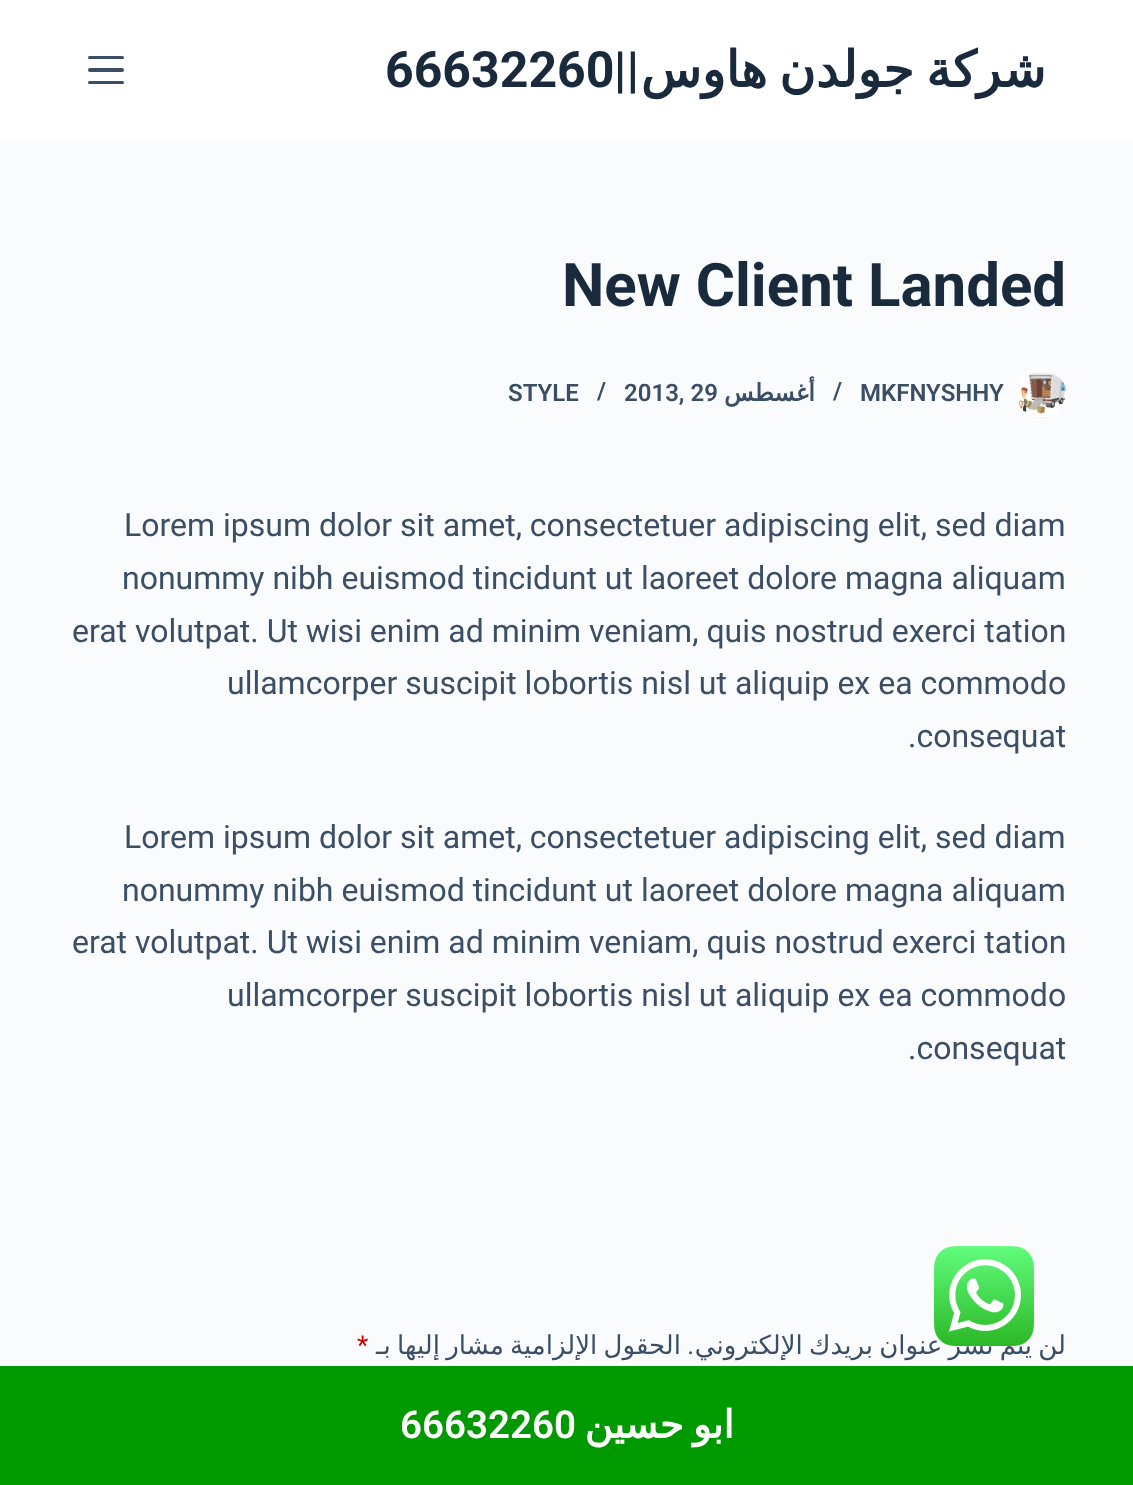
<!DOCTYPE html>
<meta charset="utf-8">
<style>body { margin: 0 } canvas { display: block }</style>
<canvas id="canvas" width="1133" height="1485"></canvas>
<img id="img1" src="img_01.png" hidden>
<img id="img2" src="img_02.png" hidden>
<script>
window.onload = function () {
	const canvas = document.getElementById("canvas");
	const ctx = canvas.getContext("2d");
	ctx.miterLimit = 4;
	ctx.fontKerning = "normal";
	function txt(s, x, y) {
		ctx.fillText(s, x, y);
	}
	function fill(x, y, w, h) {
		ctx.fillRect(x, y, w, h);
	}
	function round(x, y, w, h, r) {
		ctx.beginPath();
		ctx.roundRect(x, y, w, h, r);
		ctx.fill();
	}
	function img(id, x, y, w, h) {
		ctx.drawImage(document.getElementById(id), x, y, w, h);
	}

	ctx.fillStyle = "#FAFBFC";
	fill(0, 0, 1133, 1485);
	ctx.fillStyle = "#FFFFFF";
	fill(0, 0, 1133, 140);
	ctx.fillStyle = "#3A4F66";
	round(88, 56, 36, 3, 1.5);
	round(88, 68, 36, 4, 2);
	round(88, 81, 36, 3, 1.5);
	img("img1", 1016, 369, 50, 49);
	ctx.fillStyle = "#009900";
	fill(0, 1366, 1133, 119);
	ctx.font = "bold 50px Roboto";
	ctx.fillStyle = "#192A3D";
	txt("66632260", 385, 87);
	ctx.direction = "rtl";
	txt("||", 639, 87);
	ctx.wordSpacing = "-4px";
	ctx.font = "bold 50px DejaVu Sans";
	txt("شركة جولدن هاوس", 1046, 87);
	ctx.wordSpacing = "0px";
	ctx.direction = "ltr";
	ctx.font = "bold 60px Roboto";
	txt("New Client Landed", 562, 306);
	ctx.font = "600 24px Roboto";
	ctx.fillStyle = "#3A4F66";
	txt("STYLE", 508, 401);
	txt("/", 597, 399);
	txt("2013, 29", 624, 401);
	ctx.direction = "rtl";
	ctx.font = "bold 24px DejaVu Sans";
	txt("أغسطس", 815, 401);
	ctx.direction = "ltr";
	ctx.font = "600 24px Roboto";
	txt("/", 833, 399);
	txt("MKFNYSHHY", 860, 401);
	ctx.font = "32px Roboto";
	txt("Lorem ipsum dolor sit amet, consectetuer adipiscing elit, sed diam", 124, 536);
	txt("nonummy nibh euismod tincidunt ut laoreet dolore magna aliquam", 122, 589);
	txt("erat volutpat. Ut wisi enim ad minim veniam, quis nostrud exerci tation", 72, 642);
	txt("ullamcorper suscipit lobortis nisl ut aliquip ex ea commodo", 227, 694);
	txt(".consequat", 908, 747);
	txt("Lorem ipsum dolor sit amet, consectetuer adipiscing elit, sed diam", 124, 848);
	txt("nonummy nibh euismod tincidunt ut laoreet dolore magna aliquam", 122, 901);
	txt("erat volutpat. Ut wisi enim ad minim veniam, quis nostrud exerci tation", 72, 953);
	txt("ullamcorper suscipit lobortis nisl ut aliquip ex ea commodo", 227, 1006);
	txt(".consequat", 908, 1059);
	ctx.font = "26px Roboto";
	ctx.fillStyle = "#CC0000";
	txt("*", 357, 1354);
	ctx.wordSpacing = "-2px";
	ctx.direction = "rtl";
	ctx.font = "26px DejaVu Sans";
	ctx.fillStyle = "#3A4F66";
	txt("الحقول الإلزامية مشار إليها بـ", 681, 1354);
	txt("لن يتم نشر عنوان بريدك الإلكتروني", 1066, 1354);
	ctx.wordSpacing = "0px";
	ctx.font = "26px Roboto";
	txt(".", 694, 1354);
	img("img2", 934, 1246, 100, 100);
	ctx.direction = "ltr";
	ctx.font = "600 38.5px Roboto";
	ctx.fillStyle = "#FFFFFF";
	txt("66632260", 400, 1438);
	ctx.wordSpacing = "-3px";
	ctx.direction = "rtl";
	ctx.font = "bold 38.5px DejaVu Sans";
	txt("ابو حسين", 734, 1438);
};
</script>
